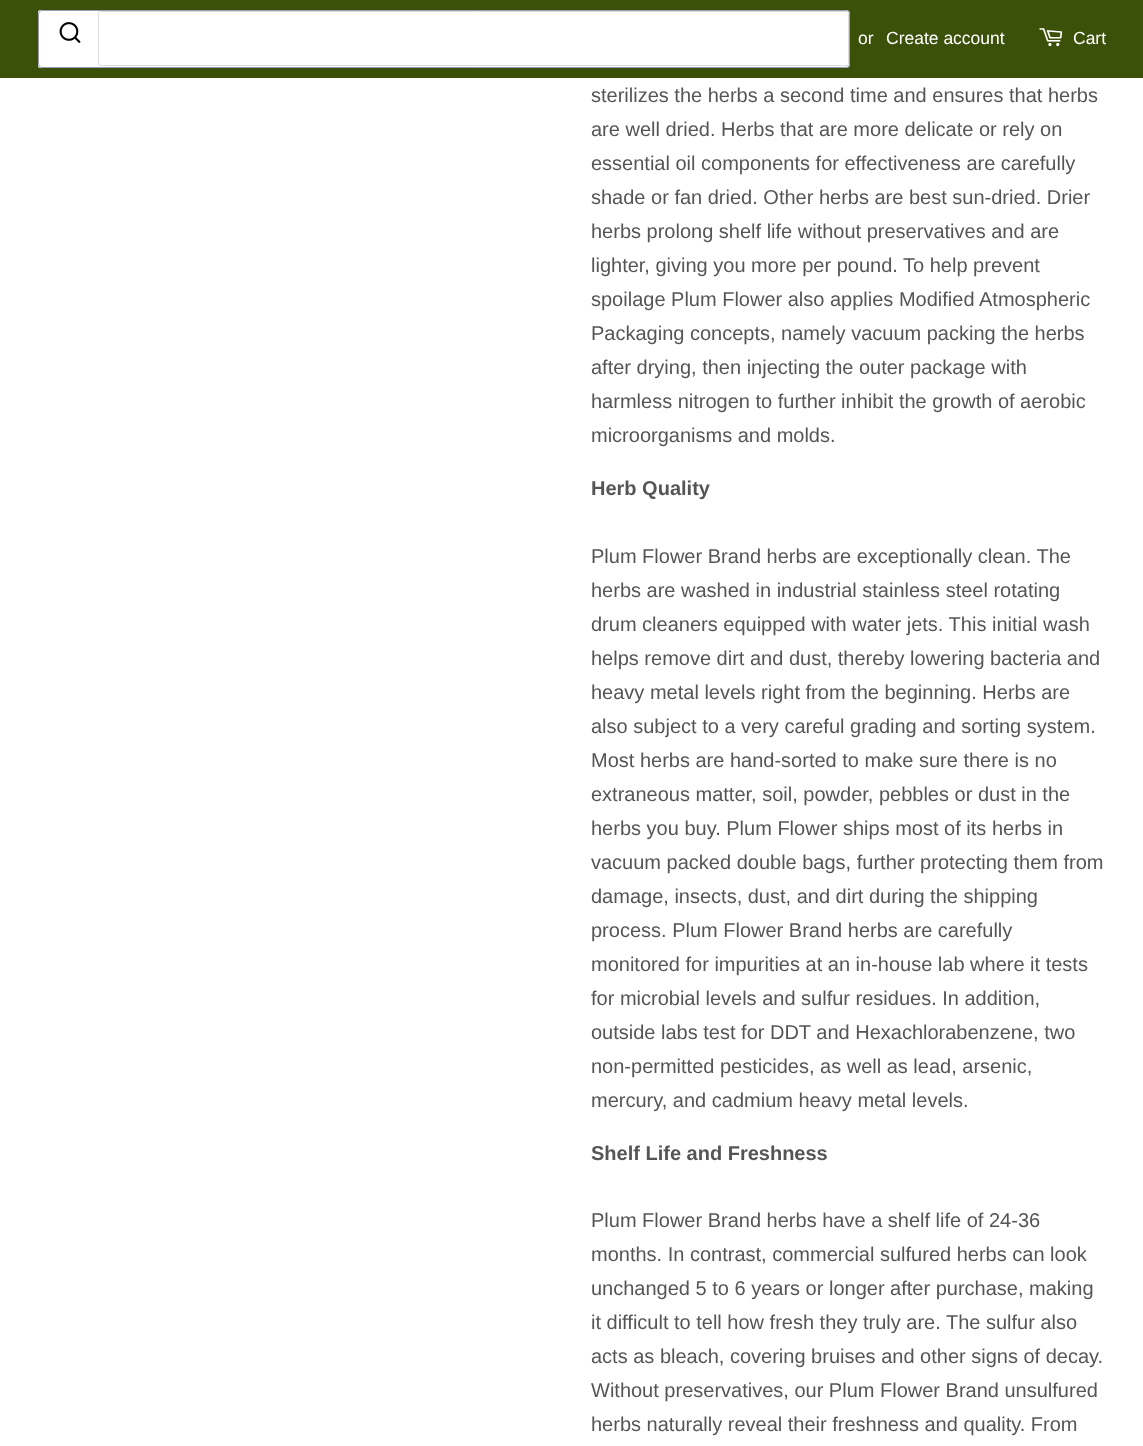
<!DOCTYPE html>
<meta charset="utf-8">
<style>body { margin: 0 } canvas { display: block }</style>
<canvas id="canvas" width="1143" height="1446"></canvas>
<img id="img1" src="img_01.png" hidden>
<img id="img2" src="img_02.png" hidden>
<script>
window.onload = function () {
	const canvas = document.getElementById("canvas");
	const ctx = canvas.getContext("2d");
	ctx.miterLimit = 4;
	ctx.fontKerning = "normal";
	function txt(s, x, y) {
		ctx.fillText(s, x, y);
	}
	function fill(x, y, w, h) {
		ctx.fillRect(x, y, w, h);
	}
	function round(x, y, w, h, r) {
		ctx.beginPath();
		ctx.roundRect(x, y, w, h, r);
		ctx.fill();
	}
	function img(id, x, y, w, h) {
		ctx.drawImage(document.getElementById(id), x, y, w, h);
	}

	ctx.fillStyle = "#FFFFFF";
	fill(0, 0, 1143, 1446);
	ctx.fillStyle = "#3B5109";
	fill(0, 0, 1143, 78);
	ctx.fillStyle = "#FFFFFF";
	round(38, 10, 200, 58, 2.5);
	round(38, 10, 812, 58, 4);
	ctx.beginPath();
	ctx.roundRect(38.5, 10.5, 811, 57, 3.5);
	ctx.strokeStyle = "rgba(128, 126, 163, 0.8)";
	ctx.stroke();
	img("img1", 59, 22, 22, 21);
	ctx.beginPath();
	ctx.roundRect(98.5, 11.5, 750, 54, 2);
	ctx.strokeStyle = "#DDDDDD";
	ctx.stroke();
	img("img2", 1039, 28, 24, 19);
	ctx.font = "17.5px Liberation Sans";
	txt("or", 858, 44);
	txt("Create account", 886, 44);
	txt("Cart", 1073, 44);
	ctx.font = "20px Liberation Sans";
	ctx.fillStyle = "#555555";
	txt("sterilizes the herbs a second time and ensures that herbs", 591, 102);
	txt("are well dried. Herbs that are more delicate or rely on", 591, 136);
	txt("essential oil components for effectiveness are carefully", 591, 170);
	txt("shade or fan dried. Other herbs are best sun-dried. Drier", 591, 204);
	txt("herbs prolong shelf life without preservatives and are", 591, 238);
	txt("lighter, giving you more per pound. To help prevent", 591, 272);
	txt("spoilage Plum Flower also applies Modified Atmospheric", 591, 306);
	txt("Packaging concepts, namely vacuum packing the herbs", 591, 340);
	txt("after drying, then injecting the outer package with", 591, 374);
	txt("harmless nitrogen to further inhibit the growth of aerobic", 591, 408);
	txt("microorganisms and molds.", 591, 442);
	ctx.font = "bold 20px Liberation Sans";
	txt("Herb Quality", 591, 495);
	ctx.font = "20px Liberation Sans";
	txt("Plum Flower Brand herbs are exceptionally clean. The", 591, 563);
	txt("herbs are washed in industrial stainless steel rotating", 591, 597);
	txt("drum cleaners equipped with water jets. This initial wash", 591, 631);
	txt("helps remove dirt and dust, thereby lowering bacteria and", 591, 665);
	txt("heavy metal levels right from the beginning. Herbs are", 591, 699);
	txt("also subject to a very careful grading and sorting system.", 591, 733);
	txt("Most herbs are hand-sorted to make sure there is no", 591, 767);
	txt("extraneous matter, soil, powder, pebbles or dust in the", 591, 801);
	txt("herbs you buy. Plum Flower ships most of its herbs in", 591, 835);
	txt("vacuum packed double bags, further protecting them from", 591, 869);
	txt("damage, insects, dust, and dirt during the shipping", 591, 903);
	txt("process. Plum Flower Brand herbs are carefully", 591, 937);
	txt("monitored for impurities at an in-house lab where it tests", 591, 971);
	txt("for microbial levels and sulfur residues. In addition,", 591, 1005);
	txt("outside labs test for DDT and Hexachlorabenzene, two", 591, 1039);
	txt("non-permitted pesticides, as well as lead, arsenic,", 591, 1073);
	txt("mercury, and cadmium heavy metal levels.", 591, 1107);
	ctx.font = "bold 20px Liberation Sans";
	txt("Shelf Life and Freshness", 591, 1160);
	ctx.font = "20px Liberation Sans";
	txt("Plum Flower Brand herbs have a shelf life of 24-36", 591, 1227);
	txt("months. In contrast, commercial sulfured herbs can look", 591, 1261);
	txt("unchanged 5 to 6 years or longer after purchase, making", 591, 1295);
	txt("it difficult to tell how fresh they truly are. The sulfur also", 591, 1329);
	txt("acts as bleach, covering bruises and other signs of decay.", 591, 1363);
	txt("Without preservatives, our Plum Flower Brand unsulfured", 591, 1397);
	txt("herbs naturally reveal their freshness and quality. From", 591, 1431);
};
</script>
